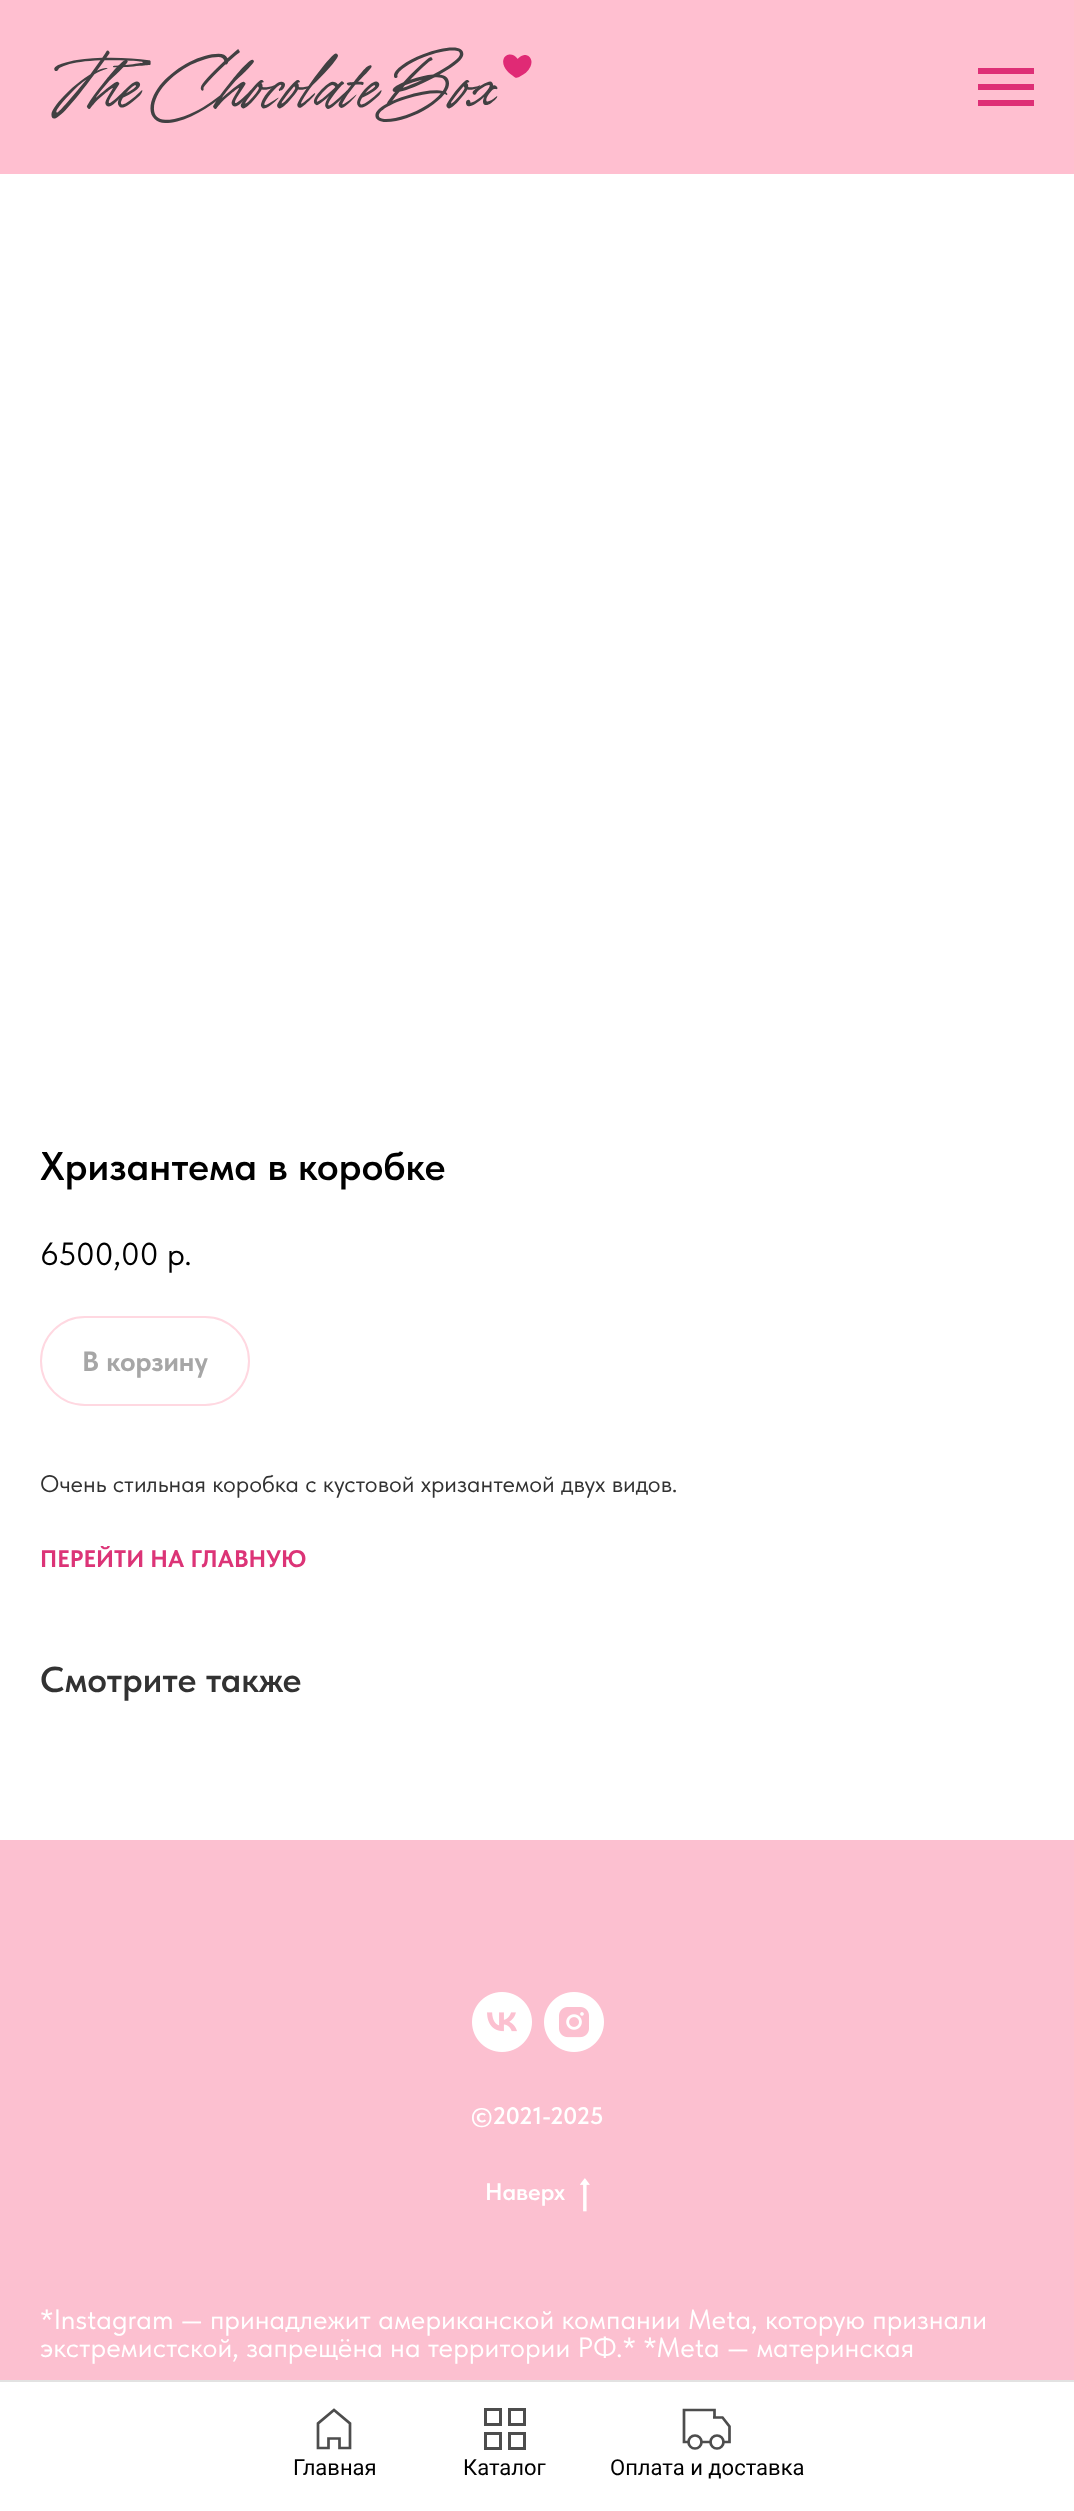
<!DOCTYPE html>
<meta charset="utf-8">
<style>body { margin: 0 } canvas { display: block }</style>
<canvas id="canvas" width="1074" height="2511"></canvas>
<img id="img1" src="img_01.png" hidden>
<img id="img2" src="img_02.png" hidden>
<img id="img3" src="img_03.png" hidden>
<img id="img4" src="img_04.png" hidden>
<script>
window.onload = function () {
	const canvas = document.getElementById("canvas");
	const ctx = canvas.getContext("2d");
	ctx.miterLimit = 4;
	ctx.fontKerning = "normal";
	function txt(s, x, y) {
		ctx.fillText(s, x, y);
	}
	function fill(x, y, w, h) {
		ctx.fillRect(x, y, w, h);
	}
	function img(id, x, y, w, h) {
		ctx.drawImage(document.getElementById(id), x, y, w, h);
	}

	ctx.fillStyle = "#FFFFFF";
	fill(0, 0, 1074, 2511);
	ctx.beginPath();
	ctx.roundRect(41, 1317, 208, 88, 44);
	ctx.strokeStyle = "#FFD8E1";
	ctx.lineWidth = 2;
	ctx.stroke();
	ctx.fillStyle = "#FCC0D0";
	fill(0, 1840, 1074, 540);
	img("img1", 472, 1992, 60, 60);
	img("img2", 544, 1992, 60, 60);
	img("img3", 580, 2178, 10, 34);
	ctx.fillStyle = "#FFBFD0";
	fill(0, 0, 1074, 174);
	img("img4", 51, 47, 481, 76);
	ctx.fillStyle = "#DE2F76";
	fill(978, 68, 56, 6);
	fill(978, 84, 56, 6);
	fill(978, 100, 56, 6);
	ctx.fillStyle = "#E2E2E2";
	fill(0, 2380, 1074, 2);
	ctx.beginPath();
	ctx.moveTo(350, 2448);
	ctx.lineTo(339.5, 2448);
	ctx.lineTo(339.5, 2438.5);
	ctx.lineTo(328.5, 2438.5);
	ctx.lineTo(328.5, 2448);
	ctx.lineTo(318, 2448);
	ctx.lineTo(318, 2423.5);
	ctx.lineTo(334, 2410);
	ctx.lineTo(350, 2423.5);
	ctx.closePath();
	ctx.strokeStyle = "#4D4D4D";
	ctx.lineWidth = 2.7;
	ctx.stroke();
	ctx.lineWidth = 3;
	ctx.strokeRect(485.5, 2409.5, 15, 15);
	ctx.strokeRect(509.5, 2409.5, 15, 15);
	ctx.strokeRect(485.5, 2433.5, 15, 15);
	ctx.strokeRect(509.5, 2433.5, 15, 15);
	ctx.beginPath();
	ctx.moveTo(710.5, 2442);
	ctx.lineTo(701.5, 2442);
	ctx.moveTo(714.5, 2417.5);
	ctx.lineTo(714.5, 2410);
	ctx.lineTo(684, 2410);
	ctx.lineTo(684, 2442);
	ctx.lineTo(688.5, 2442);
	ctx.moveTo(713, 2417.5);
	ctx.lineTo(722.5, 2417.5);
	ctx.lineTo(729.5, 2426.5);
	ctx.lineTo(729.5, 2442);
	ctx.lineTo(723, 2442);
	ctx.lineWidth = 2.7;
	ctx.stroke();
	ctx.beginPath();
	ctx.arc(695, 2442, 6.5, 0, Math.PI * 2);
	ctx.stroke();
	ctx.beginPath();
	ctx.arc(717, 2442, 6.5, 0, Math.PI * 2);
	ctx.stroke();
	ctx.font = "600 40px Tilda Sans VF";
	ctx.fillStyle = "#000000";
	txt("Хризантема в коробке", 40, 1180);
	ctx.font = "32px Tilda Sans VF";
	txt("6500,00", 40, 1265);
	txt("р.", 167, 1265);
	ctx.font = "bold 28px Tilda Sans VF";
	ctx.fillStyle = "#A6A6A6";
	txt("В корзину", 82, 1371);
	ctx.font = "24px Tilda Sans VF";
	ctx.fillStyle = "#323232";
	txt("Очень стильная коробка с кустовой хризантемой двух видов.", 40, 1492);
	ctx.font = "bold 24px Tilda Sans VF";
	ctx.fillStyle = "#DC3477";
	txt("ПЕРЕЙТИ НА ГЛАВНУЮ", 40, 1567);
	ctx.font = "600 36px Tilda Sans VF";
	ctx.fillStyle = "#323232";
	txt("Смотрите также", 40, 1692);
	ctx.font = "600 24px Tilda Sans VF";
	ctx.fillStyle = "#FFFFFF";
	txt("©2021-2025", 471, 2124);
	txt("Наверх", 485, 2200);
	ctx.font = "28px Tilda Sans VF";
	txt("*Instagram — принадлежит американской компании Meta, которую признали", 40, 2329);
	txt("экстремистской, запрещёна на территории РФ.* *Meta — материнская", 40, 2357);
	ctx.font = "22px Roboto";
	ctx.fillStyle = "#000000";
	txt("Главная", 293, 2475);
	txt("Каталог", 463, 2475);
	txt("Оплата и доставка", 610, 2475);
};
</script>
